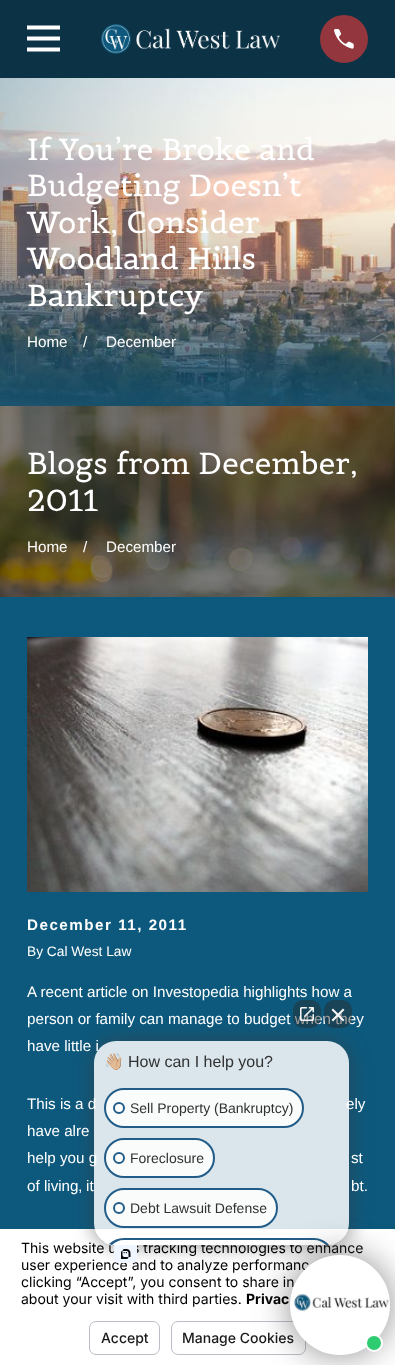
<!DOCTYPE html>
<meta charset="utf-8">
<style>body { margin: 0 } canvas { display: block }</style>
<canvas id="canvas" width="395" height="1365"></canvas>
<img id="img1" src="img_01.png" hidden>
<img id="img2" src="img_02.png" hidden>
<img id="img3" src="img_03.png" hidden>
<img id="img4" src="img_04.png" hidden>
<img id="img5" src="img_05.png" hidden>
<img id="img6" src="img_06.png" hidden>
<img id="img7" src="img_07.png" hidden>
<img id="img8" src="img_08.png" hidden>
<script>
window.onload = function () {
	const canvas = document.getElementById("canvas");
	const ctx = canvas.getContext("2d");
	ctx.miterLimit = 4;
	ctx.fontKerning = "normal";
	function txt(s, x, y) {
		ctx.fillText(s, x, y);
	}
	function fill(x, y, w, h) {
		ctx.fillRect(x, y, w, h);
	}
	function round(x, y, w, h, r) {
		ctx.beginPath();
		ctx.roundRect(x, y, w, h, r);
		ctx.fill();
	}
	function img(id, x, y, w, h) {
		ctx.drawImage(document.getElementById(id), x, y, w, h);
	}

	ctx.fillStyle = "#0D597D";
	fill(0, 0, 395, 1365);
	ctx.fillStyle = "#0C3245";
	fill(0, 0, 395, 78);
	ctx.save();
	ctx.beginPath();
	ctx.rect(27, 22, 33, 34);
	ctx.clip();
	ctx.fillStyle = "#FFFFFF";
	ctx.beginPath();
	ctx.moveTo(27, 25.5);
	ctx.lineTo(27, 29.5);
	ctx.lineTo(60.5, 29.5);
	ctx.lineTo(60.5, 25.5);
	ctx.closePath();
	ctx.moveTo(27, 36.5);
	ctx.lineTo(27, 40.5);
	ctx.lineTo(60.5, 40.5);
	ctx.lineTo(60.5, 36.5);
	ctx.closePath();
	ctx.moveTo(27, 47.5);
	ctx.lineTo(27, 51.5);
	ctx.lineTo(60.5, 51.5);
	ctx.lineTo(60.5, 47.5);
	ctx.closePath();
	ctx.fill();
	ctx.restore();
	img("img1", 101, 24, 179, 30);
	ctx.fillStyle = "#93363E";
	ctx.beginPath();
	ctx.arc(344, 39, 24, 0, Math.PI * 2);
	ctx.fill();
	img("img2", 334, 29, 20, 20);
	img("img3", 0, 78, 395, 328);
	img("img4", 0, 406, 395, 191);
	img("img5", 27, 637, 341, 255);
	ctx.fillStyle = "#FFFFFF";
	fill(0, 1229, 395, 136);
	ctx.save();
	ctx.beginPath();
	ctx.moveTo(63, 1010);
	ctx.lineTo(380, 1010);
	ctx.lineTo(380, 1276);
	ctx.lineTo(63, 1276);
	ctx.closePath();
	ctx.moveTo(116, 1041);
	ctx.lineTo(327, 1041);
	ctx.bezierCurveTo(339, 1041, 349, 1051, 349, 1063);
	ctx.lineTo(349, 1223);
	ctx.bezierCurveTo(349, 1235, 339, 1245, 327, 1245);
	ctx.lineTo(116, 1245);
	ctx.bezierCurveTo(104, 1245, 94, 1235, 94, 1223);
	ctx.lineTo(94, 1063);
	ctx.bezierCurveTo(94, 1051, 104, 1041, 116, 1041);
	ctx.closePath();
	ctx.clip("evenodd");
	ctx.fillStyle = "rgba(60, 60, 60, 0.6)";
	ctx.filter = "blur(10px)";
	ctx.beginPath();
	ctx.roundRect(94, 1041, 255, 204, 22);
	ctx.fill();
	ctx.filter = "none";
	ctx.restore();
	ctx.beginPath();
	ctx.roundRect(89.5, 1321.5, 70, 33, 6.5);
	ctx.strokeStyle = "#BCBEC7";
	ctx.stroke();
	ctx.beginPath();
	ctx.roundRect(171.5, 1321.5, 134, 33, 6.5);
	ctx.stroke();
	ctx.font = "30.25px Belgrano";
	txt("If You’re Broke and", 27, 160);
	txt("Budgeting Doesn’t", 27, 196);
	txt("Work, Consider", 27, 233);
	txt("Woodland Hills", 27, 269);
	txt("Bankruptcy", 27, 306);
	ctx.font = "15.2px Arimo";
	txt("Home", 27, 347);
	txt("/", 83, 347);
	txt("December", 106, 347);
	ctx.font = "30.25px Belgrano";
	txt("Blogs from December,", 27, 474);
	txt("2011", 27, 511);
	ctx.font = "15.2px Arimo";
	txt("Home", 27, 552);
	txt("/", 83, 552);
	txt("December", 106, 552);
	ctx.letterSpacing = "1.5px";
	ctx.font = "bold 15.2px Arimo";
	txt("December 11, 2011", 27, 930);
	ctx.letterSpacing = "0px";
	ctx.font = "13.75px Arimo";
	txt("By Cal West Law", 27, 956);
	ctx.font = "15.2px Arimo";
	txt("A recent article on Investopedia highlights how a", 27, 997);
	txt("person or family can manage to budget when they", 27, 1024);
	txt("have little i", 27, 1051);
	txt("This is a d", 27, 1109);
	txt("ely", 346, 1109);
	txt("have alre", 27, 1136);
	txt("help you g", 27, 1163);
	txt("st", 351, 1163);
	txt("of living‚ it", 27, 1191);
	txt("bt.", 351, 1191);
	ctx.fillStyle = "rgba(39, 39, 39, 0.45)";
	round(293, 1000, 28, 28, 10);
	img("img6", 300, 1007, 14, 14);
	round(324, 1000, 28, 28, 10);
	ctx.fillStyle = "#F5F5F5";
	ctx.beginPath();
	ctx.moveTo(331.5, 1010);
	ctx.lineTo(333, 1008.5);
	ctx.lineTo(344.5, 1020);
	ctx.lineTo(343, 1021.5);
	ctx.closePath();
	ctx.fill();
	ctx.beginPath();
	ctx.moveTo(343, 1008.5);
	ctx.lineTo(344.5, 1010);
	ctx.lineTo(333, 1021.5);
	ctx.lineTo(331.5, 1020);
	ctx.closePath();
	ctx.fill();
	ctx.font = "14px Inter";
	ctx.fillStyle = "#000000";
	txt("This website u", 21, 1253);
	txt("s tracking technologies to enhance", 132, 1253);
	ctx.fillStyle = "rgba(255, 255, 255, 0.85)";
	round(94, 1041, 255, 204, 22);
	ctx.save();
	ctx.beginPath();
	ctx.roundRect(94, 1041, 255, 204, 20);
	ctx.clip();
	ctx.beginPath();
	ctx.roundRect(104, 1238, 230, 7, [20, 20, 0, 0]);
	ctx.fill();
	ctx.restore();
	ctx.fillStyle = "#225D89";
	ctx.beginPath();
	ctx.moveTo(124, 1238);
	ctx.bezierCurveTo(118, 1238, 113, 1240, 109, 1244);
	ctx.lineTo(112, 1245);
	ctx.bezierCurveTo(115, 1242, 119, 1240, 124, 1240);
	ctx.lineTo(314, 1240);
	ctx.bezierCurveTo(319, 1240, 323, 1242, 326, 1245);
	ctx.lineTo(329, 1245);
	ctx.bezierCurveTo(326, 1241, 320, 1238, 314, 1238);
	ctx.closePath();
	ctx.fill();
	ctx.fillStyle = "rgba(255, 255, 255, 0.85)";
	ctx.beginPath();
	ctx.roundRect(105, 1189, 172, 38, 19);
	ctx.fill();
	ctx.strokeStyle = "#225D89";
	ctx.lineWidth = 2;
	ctx.stroke();
	ctx.fillStyle = "rgba(60, 60, 60, 0.6)";
	ctx.filter = "blur(17.5px)";
	ctx.beginPath();
	ctx.roundRect(290, 1255, 100, 100, 50);
	ctx.fill();
	ctx.filter = "none";
	ctx.fillStyle = "#FFFFFF";
	ctx.beginPath();
	ctx.arc(119, 1208, 5, 0, Math.PI * 2);
	ctx.fill();
	ctx.stroke();
	ctx.font = "14px Liberation Sans";
	ctx.fillStyle = "#313131";
	txt("Debt Lawsuit Defense", 130, 1213);
	ctx.fillStyle = "rgba(255, 255, 255, 0.85)";
	ctx.beginPath();
	ctx.roundRect(105, 1139, 109, 38, 19);
	ctx.fill();
	ctx.stroke();
	ctx.fillStyle = "#FFFFFF";
	ctx.beginPath();
	ctx.arc(119, 1158, 5, 0, Math.PI * 2);
	ctx.fill();
	ctx.stroke();
	ctx.fillStyle = "#313131";
	txt("Foreclosure", 130, 1163);
	ctx.fillStyle = "rgba(255, 255, 255, 0.85)";
	ctx.beginPath();
	ctx.roundRect(105, 1089, 198, 38, 19);
	ctx.fill();
	ctx.stroke();
	ctx.fillStyle = "#FFFFFF";
	ctx.beginPath();
	ctx.arc(119, 1108, 5, 0, Math.PI * 2);
	ctx.fill();
	ctx.stroke();
	ctx.fillStyle = "#313131";
	txt("Sell Property (Bankruptcy)", 130, 1113);
	ctx.font = "16px Liberation Sans";
	txt("How can I help you?", 128, 1067);
	ctx.font = "16px Noto Color Emoji";
	txt("👋🏼", 104, 1067);
	ctx.font = "14px Inter";
	ctx.fillStyle = "#000000";
	txt("user experience and to analyze performanc", 21, 1270);
	img("img7", 114, 1245, 23, 18);
	txt("clicking “Accept”, you consent to share in", 21, 1287);
	txt("about your visit with third parties.", 21, 1304);
	ctx.font = "bold 14px Inter";
	txt("Privac", 246, 1304);
	ctx.font = "500 14px Inter";
	ctx.fillStyle = "#191919";
	txt("Accept", 101, 1343);
	txt("Manage Cookies", 182, 1343);
	img("img8", 290, 1255, 100, 100);
	ctx.fillStyle = "#2ECC71";
	ctx.beginPath();
	ctx.arc(374, 1343, 8, 0, Math.PI * 2);
	ctx.fill();
	ctx.strokeStyle = "#FFFFFF";
	ctx.stroke();
};
</script>
